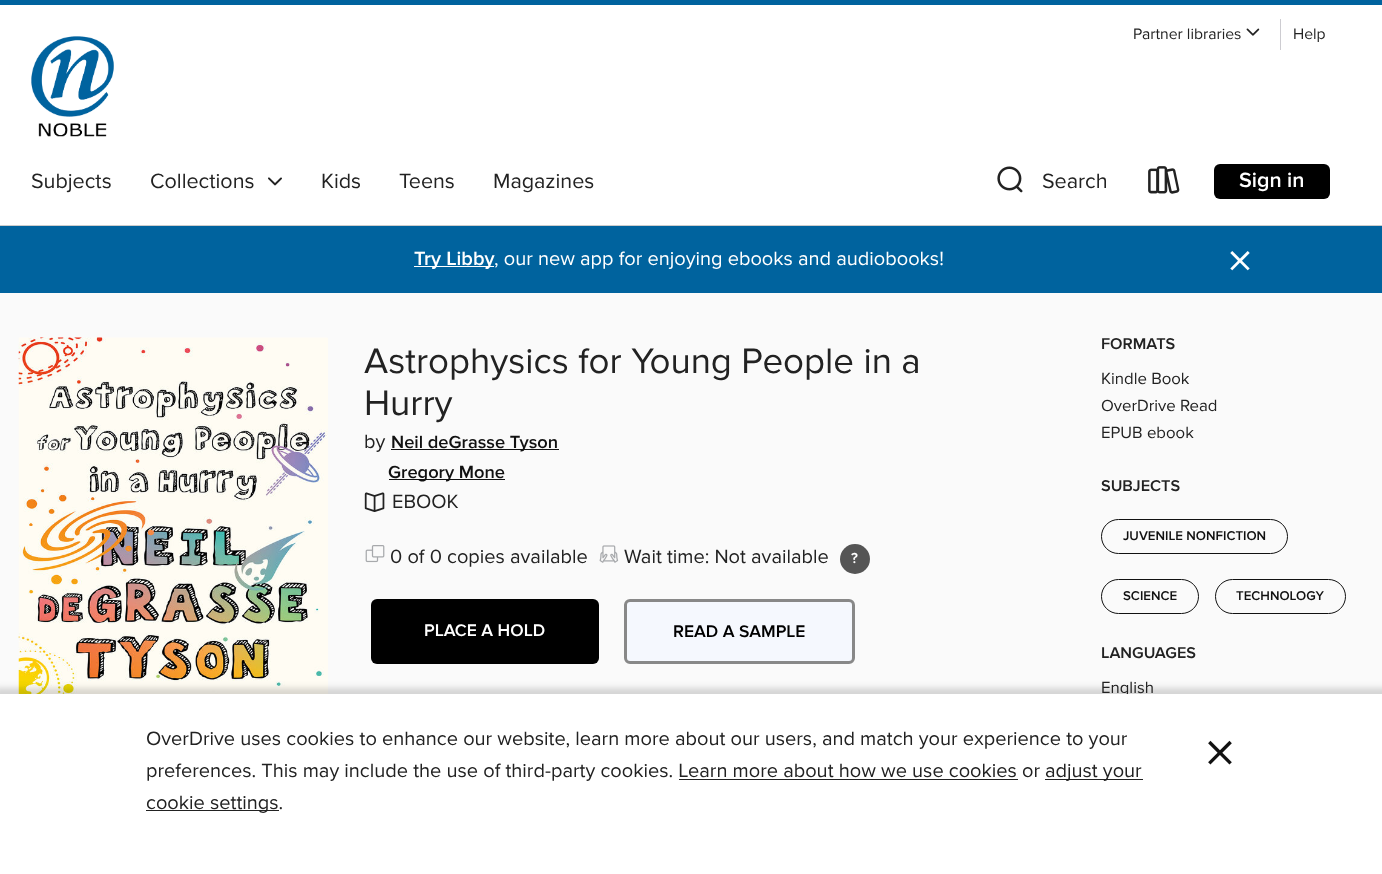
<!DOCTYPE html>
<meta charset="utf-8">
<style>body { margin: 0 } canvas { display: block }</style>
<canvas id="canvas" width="1382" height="874"></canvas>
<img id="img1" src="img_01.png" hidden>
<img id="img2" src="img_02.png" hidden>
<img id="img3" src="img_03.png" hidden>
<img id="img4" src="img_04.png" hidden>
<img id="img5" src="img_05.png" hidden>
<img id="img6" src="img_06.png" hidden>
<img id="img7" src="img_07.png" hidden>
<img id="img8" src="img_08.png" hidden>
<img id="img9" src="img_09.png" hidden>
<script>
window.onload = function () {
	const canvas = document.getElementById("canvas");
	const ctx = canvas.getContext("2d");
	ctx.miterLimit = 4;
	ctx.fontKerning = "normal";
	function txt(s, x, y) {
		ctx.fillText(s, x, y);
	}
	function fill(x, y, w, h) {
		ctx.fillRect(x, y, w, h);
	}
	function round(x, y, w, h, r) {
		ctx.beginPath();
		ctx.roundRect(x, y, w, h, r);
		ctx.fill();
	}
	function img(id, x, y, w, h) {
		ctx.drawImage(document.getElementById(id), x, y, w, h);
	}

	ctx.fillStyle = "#FAFAFA";
	fill(0, 0, 1382, 874);
	ctx.fillStyle = "#FFFFFF";
	fill(0, 5, 1382, 220);
	ctx.fillStyle = "#00639E";
	fill(0, 0, 1382, 5);
	ctx.fillStyle = "#CCCCCC";
	fill(0, 225, 1382, 1);
	img("img1", 31, 36, 83, 101);
	img("img2", 1246, 28, 14, 8);
	ctx.fillStyle = "#CDCCD1";
	fill(1280, 19, 1, 31);
	img("img3", 268, 177, 14, 9);
	img("img4", 997, 166, 26, 27);
	img("img5", 1148, 166, 32, 28);
	ctx.fillStyle = "#000000";
	round(1214, 164, 116, 35, 6);
	ctx.fillStyle = "#00639E";
	fill(0, 226, 1382, 67);
	ctx.fillStyle = "#FFFFFF";
	fill(414, 266, 80, 1);
	ctx.fillStyle = "#FFFCF3";
	fill(327, 338, 1, 356);
	img("img6", 18, 337, 310, 357);
	ctx.fillStyle = "#111111";
	fill(391, 449, 168, 1);
	fill(389, 479, 116, 1);
	img("img7", 364, 492, 21, 20);
	img("img8", 365, 545, 20, 18);
	img("img9", 599, 545, 20, 18);
	ctx.fillStyle = "#555555";
	ctx.beginPath();
	ctx.arc(855, 559, 15, 0, Math.PI * 2);
	ctx.fill();
	ctx.fillStyle = "#000000";
	round(371, 599, 228, 65, 6);
	ctx.fillStyle = "#F5F8FE";
	ctx.beginPath();
	ctx.roundRect(625.5, 600.5, 228, 62, 4.5);
	ctx.fill();
	ctx.strokeStyle = "#888888";
	ctx.lineWidth = 3;
	ctx.stroke();
	ctx.beginPath();
	ctx.roundRect(1101.5, 519.5, 186, 34, 17);
	ctx.strokeStyle = "#111111";
	ctx.lineWidth = 1;
	ctx.stroke();
	ctx.beginPath();
	ctx.roundRect(1101.5, 579.5, 97, 34, 17);
	ctx.stroke();
	ctx.beginPath();
	ctx.roundRect(1215.5, 579.5, 130, 34, 17);
	ctx.stroke();
	ctx.fillStyle = "rgba(0, 0, 0, 0.15)";
	ctx.filter = "blur(3px)";
	ctx.beginPath();
	ctx.rect(-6, 688, 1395, 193);
	ctx.fill();
	ctx.filter = "none";
	ctx.font = "15.75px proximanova";
	ctx.fillStyle = "#222222";
	txt("Partner libraries", 1133, 39);
	txt("Help", 1293, 39);
	ctx.font = "21.5px proximanova";
	txt("Subjects", 31, 188);
	txt("Collections", 150, 188);
	txt("Kids", 321, 188);
	txt("Teens", 399, 188);
	txt("Magazines", 493, 188);
	txt("Search", 1042, 188);
	ctx.font = "600 21.5px Proxima Nova";
	ctx.fillStyle = "#FFFFFF";
	txt("Sign in", 1239, 187);
	ctx.font = "600 20px Proxima Nova";
	txt("Try Libby", 414, 265);
	ctx.font = "20px proximanova";
	txt(", our new app for enjoying ebooks and audiobooks!", 494, 265);
	ctx.font = "52px proximanova";
	txt("×", 1227, 278);
	ctx.font = "36.7px proximanova";
	ctx.fillStyle = "#222222";
	txt("Astrophysics for Young People in a", 364, 373);
	txt("Hurry", 364, 415);
	ctx.font = "20px proximanova";
	txt("by", 364, 448);
	ctx.font = "600 18.25px Proxima Nova";
	ctx.fillStyle = "#111111";
	txt("Neil deGrasse Tyson", 391, 448);
	txt("Gregory Mone", 388, 478);
	ctx.font = "20px proximanova";
	ctx.fillStyle = "#222222";
	txt("EBOOK", 392, 508);
	txt("0 of 0 copies available", 390, 563);
	txt("Wait time: Not available", 624, 563);
	ctx.font = "600 15px Proxima Nova";
	ctx.fillStyle = "#FFFFFF";
	txt("?", 851, 563);
	ctx.font = "600 17.5px Proxima Nova";
	txt("PLACE A HOLD", 424, 636);
	ctx.fillStyle = "#000000";
	txt("READ A SAMPLE", 673, 637);
	ctx.font = "600 16.25px Proxima Nova";
	ctx.fillStyle = "#222222";
	txt("FORMATS", 1101, 349);
	ctx.font = "16.75px proximanova";
	txt("Kindle Book", 1101, 384);
	txt("OverDrive Read", 1101, 411);
	txt("EPUB ebook", 1101, 438);
	ctx.font = "600 16.25px Proxima Nova";
	txt("SUBJECTS", 1101, 491);
	ctx.font = "600 13.25px Proxima Nova";
	ctx.fillStyle = "#111111";
	txt("JUVENILE NONFICTION", 1123, 540);
	txt("SCIENCE", 1123, 600);
	txt("TECHNOLOGY", 1236, 600);
	ctx.font = "600 16.25px Proxima Nova";
	ctx.fillStyle = "#222222";
	txt("LANGUAGES", 1101, 658);
	ctx.font = "16.75px proximanova";
	txt("English", 1101, 693);
	ctx.fillStyle = "#FFFFFF";
	fill(0, 694, 1382, 180);
	ctx.font = "20px proximanova";
	ctx.fillStyle = "#222222";
	txt("OverDrive uses cookies to enhance our website, learn more about our users, and match your experience to your", 146, 745);
	txt("preferences. This may include the use of third-party cookies. Learn more about how we use cookies or", 146, 777);
	fill(679, 779, 339, 1);
	fill(1045, 779, 98, 1);
	txt("adjust your", 1045, 777);
	fill(146, 810, 133, 1);
	txt("cookie settings.", 146, 809);
	ctx.font = "64px proximanova";
	ctx.fillStyle = "#111111";
	txt("×", 1204, 774);
};
</script>
